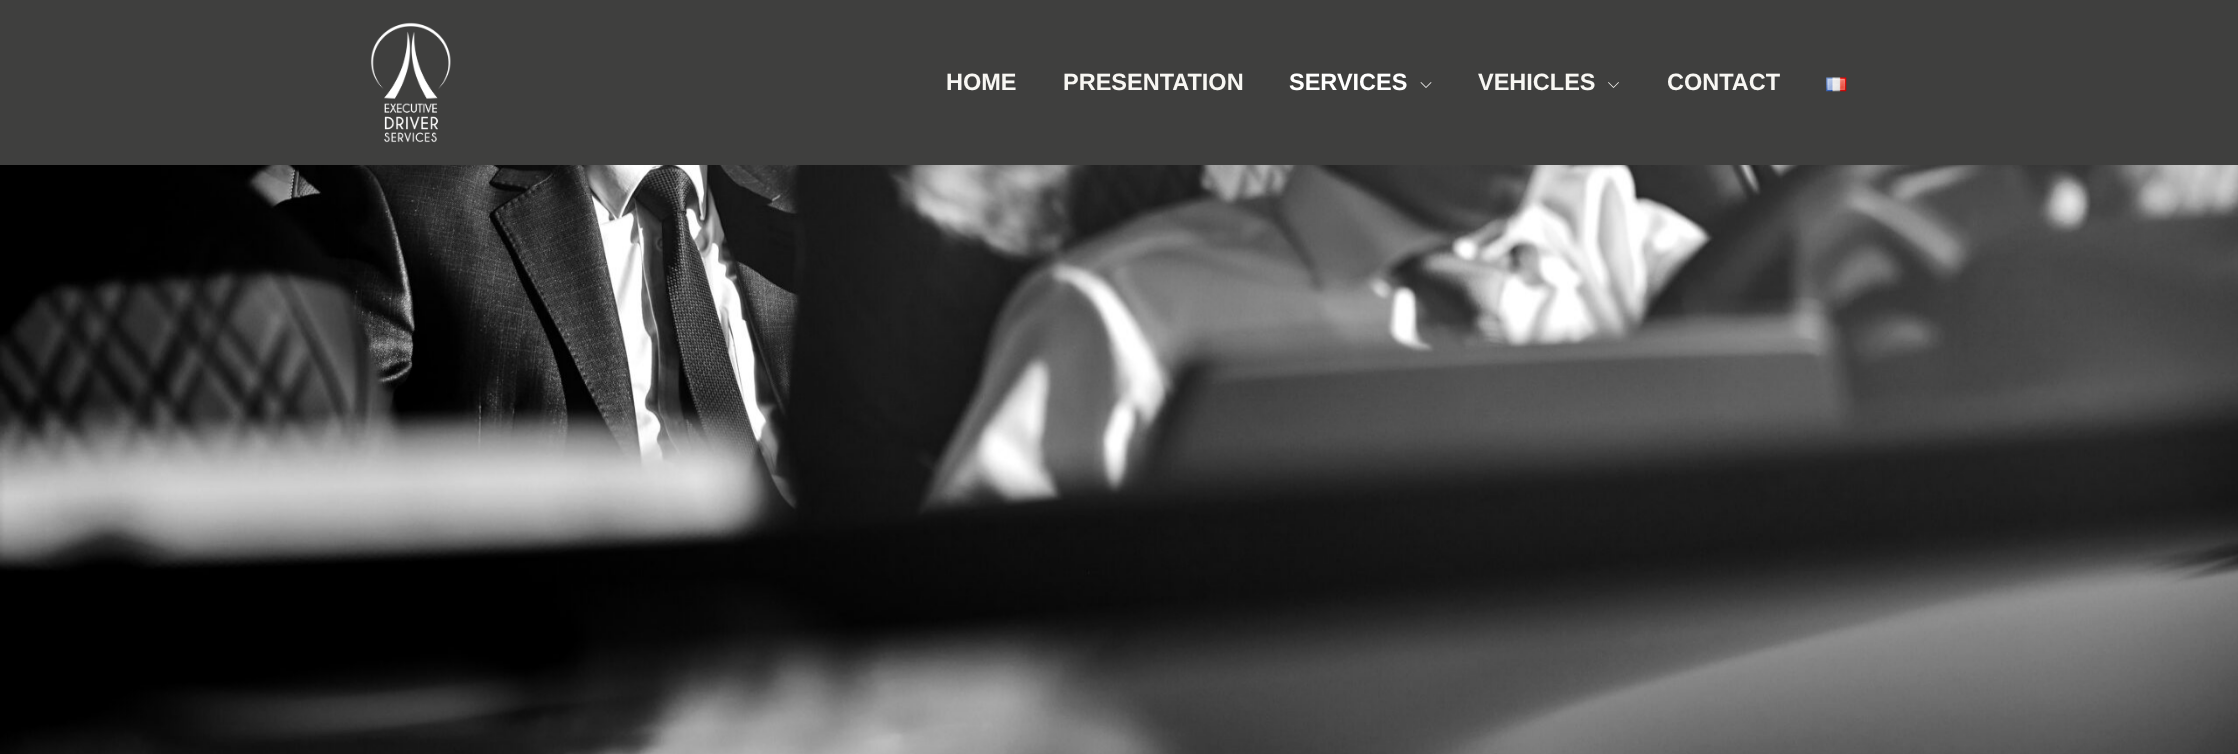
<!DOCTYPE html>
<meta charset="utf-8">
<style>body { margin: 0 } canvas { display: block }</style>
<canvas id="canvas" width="2238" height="754"></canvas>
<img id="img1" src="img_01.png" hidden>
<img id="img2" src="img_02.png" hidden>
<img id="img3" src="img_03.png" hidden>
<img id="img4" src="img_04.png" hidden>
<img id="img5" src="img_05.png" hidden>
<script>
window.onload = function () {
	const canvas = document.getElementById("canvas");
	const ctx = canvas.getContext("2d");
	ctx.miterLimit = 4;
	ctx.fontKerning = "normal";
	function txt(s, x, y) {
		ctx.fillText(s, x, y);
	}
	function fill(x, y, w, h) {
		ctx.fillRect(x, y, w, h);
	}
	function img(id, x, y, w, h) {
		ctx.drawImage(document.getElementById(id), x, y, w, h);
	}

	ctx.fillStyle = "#FFFFFF";
	fill(0, 0, 2238, 754);
	ctx.fillStyle = "#3F3F3E";
	fill(0, 0, 2238, 165);
	img("img1", 370, 22, 81, 121);
	img("img2", 1420, 82, 12, 6);
	img("img3", 1608, 82, 11, 6);
	img("img4", 1826, 77, 21, 15);
	img("img5", 0, 165, 2238, 589);
	ctx.font = "bold 23.5px Liberation Sans";
	ctx.fillStyle = "#F8F7F3";
	txt("HOME", 946, 90);
	txt("PRESENTATION", 1063, 90);
	ctx.fillStyle = "#FFFFFF";
	txt("SERVICES", 1289, 90);
	ctx.fillStyle = "#F8F7F3";
	txt("VEHICLES", 1478, 90);
	txt("CONTACT", 1667, 90);
};
</script>
